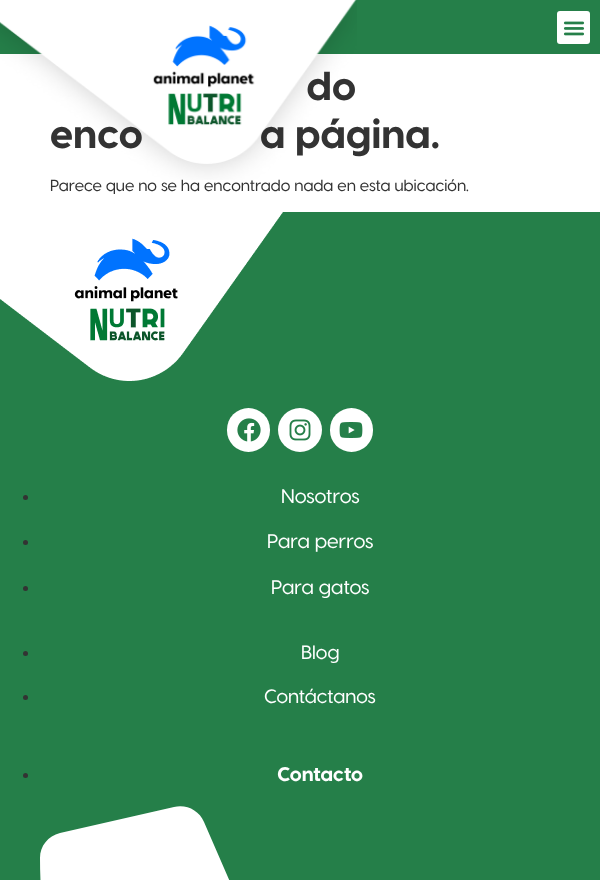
<!DOCTYPE html>
<meta charset="utf-8">
<style>body { margin: 0 } canvas { display: block }</style>
<canvas id="canvas" width="600" height="880"></canvas>
<img id="img1" src="img_02.png" hidden>
<img id="img2" src="img_03.png" hidden>
<img id="img3" src="img_04.png" hidden>
<img id="img4" src="img_05.png" hidden>
<img id="img5" src="img_06.png" hidden>
<img id="img6" src="img_01.png" hidden>
<script>
window.onload = function () {
	const canvas = document.getElementById("canvas");
	const ctx = canvas.getContext("2d");
	ctx.miterLimit = 4;
	ctx.fontKerning = "normal";
	function txt(s, x, y) {
		ctx.fillText(s, x, y);
	}
	function fill(x, y, w, h) {
		ctx.fillRect(x, y, w, h);
	}
	function round(x, y, w, h, r) {
		ctx.beginPath();
		ctx.roundRect(x, y, w, h, r);
		ctx.fill();
	}
	function img(id, x, y, w, h) {
		ctx.drawImage(document.getElementById(id), x, y, w, h);
	}

	ctx.fillStyle = "#FFFFFF";
	fill(0, 0, 600, 880);
	ctx.fillStyle = "#257F49";
	fill(0, 0, 600, 54);
	ctx.fillStyle = "#FFFFFF";
	round(557, 11, 33, 33, 3);
	img("img1", 563, 21, 22, 15);
	ctx.fillStyle = "#257F49";
	fill(0, 212, 600, 668);
	img("img2", 0, 212, 283, 169);
	ctx.fillStyle = "#FFFFFF";
	round(227, 408, 43, 44, 21.5);
	img("img3", 237, 418, 24, 24);
	ctx.beginPath();
	ctx.arc(300, 430, 22, 0, Math.PI * 2);
	ctx.fill();
	img("img4", 289, 419, 22, 22);
	round(330, 408, 43, 44, 21.5);
	img("img5", 339, 422, 24, 16);
	ctx.fillStyle = "#333333";
	ctx.beginPath();
	ctx.arc(25.5, 497.5, 2.5, 0, Math.PI * 2);
	ctx.fill();
	ctx.beginPath();
	ctx.arc(25.5, 542.5, 2.5, 0, Math.PI * 2);
	ctx.fill();
	ctx.beginPath();
	ctx.arc(25.5, 588.5, 2.5, 0, Math.PI * 2);
	ctx.fill();
	ctx.beginPath();
	ctx.arc(25.5, 653.5, 2.5, 0, Math.PI * 2);
	ctx.fill();
	ctx.beginPath();
	ctx.arc(25.5, 697.5, 2.5, 0, Math.PI * 2);
	ctx.fill();
	ctx.beginPath();
	ctx.arc(25.5, 775.5, 2.5, 0, Math.PI * 2);
	ctx.fill();
	ctx.fillStyle = "#FFFFFF";
	ctx.beginPath();
	ctx.moveTo(584, 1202);
	ctx.lineTo(462, 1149);
	ctx.bezierCurveTo(451, 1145, 438, 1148, 431, 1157);
	ctx.lineTo(377, 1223);
	ctx.bezierCurveTo(292, 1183, 223, 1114, 183, 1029);
	ctx.lineTo(249, 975);
	ctx.bezierCurveTo(258, 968, 261, 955, 257, 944);
	ctx.lineTo(204, 822);
	ctx.bezierCurveTo(199, 810, 186, 804, 174, 807);
	ctx.lineTo(60, 833);
	ctx.bezierCurveTo(48, 836, 40, 846, 40, 858);
	ctx.bezierCurveTo(40, 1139, 267, 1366, 548, 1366);
	ctx.bezierCurveTo(560, 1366, 570, 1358, 573, 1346);
	ctx.lineTo(599, 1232);
	ctx.bezierCurveTo(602, 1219, 596, 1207, 584, 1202);
	ctx.closePath();
	ctx.fill();
	ctx.font = "800 40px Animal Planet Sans";
	ctx.fillStyle = "#333333";
	txt("do", 307, 100);
	txt("enco", 50, 148);
	txt("a página.", 260, 148);
	ctx.font = "500 16px Animal Planet Sans";
	txt("Parece que no se ha encontrado nada en esta ubicación.", 50, 191);
	img("img6", 0, 0, 357, 180);
	ctx.font = "500 19.75px Animal Planet Sans";
	ctx.fillStyle = "#FFFFFF";
	txt("Nosotros", 281, 503);
	txt("Para perros", 267, 548);
	txt("Para gatos", 271, 594);
	ctx.font = "500 19.25px Animal Planet Sans";
	txt("Blog", 301, 659);
	txt("Contáctanos", 264, 703);
	ctx.font = "800 19.75px Animal Planet Sans";
	txt("Contacto", 277, 781);
};
</script>
